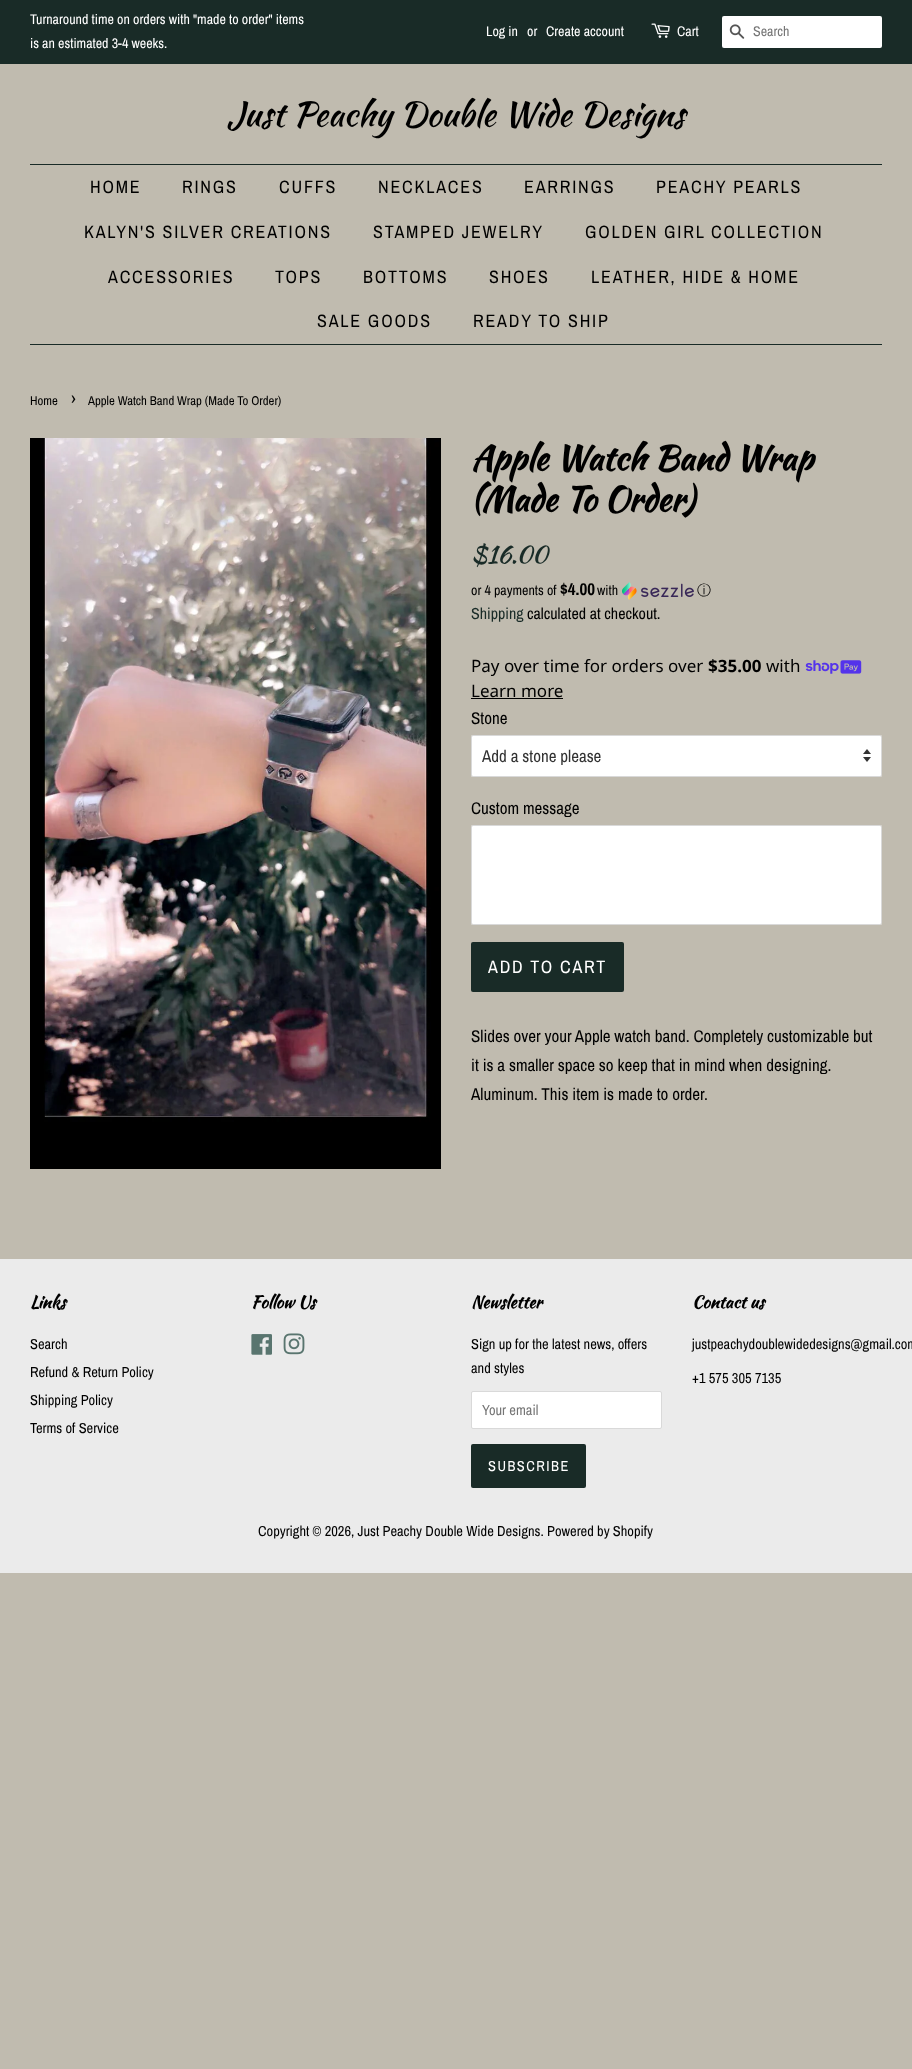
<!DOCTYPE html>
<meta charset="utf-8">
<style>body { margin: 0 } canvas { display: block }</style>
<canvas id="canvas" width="912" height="2069"></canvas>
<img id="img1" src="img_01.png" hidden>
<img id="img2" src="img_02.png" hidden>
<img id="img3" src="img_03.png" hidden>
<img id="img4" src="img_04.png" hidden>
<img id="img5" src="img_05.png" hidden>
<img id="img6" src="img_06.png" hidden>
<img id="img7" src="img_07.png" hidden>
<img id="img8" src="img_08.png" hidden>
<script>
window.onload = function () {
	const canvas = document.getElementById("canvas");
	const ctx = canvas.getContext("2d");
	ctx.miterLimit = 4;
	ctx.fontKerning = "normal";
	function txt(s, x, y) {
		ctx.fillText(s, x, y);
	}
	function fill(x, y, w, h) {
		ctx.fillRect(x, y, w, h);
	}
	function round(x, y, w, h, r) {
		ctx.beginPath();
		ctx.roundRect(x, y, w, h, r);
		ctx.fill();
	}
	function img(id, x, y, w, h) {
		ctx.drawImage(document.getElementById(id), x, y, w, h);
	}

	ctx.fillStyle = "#C0BBAF";
	fill(0, 0, 912, 2069);
	ctx.fillStyle = "#192B27";
	fill(0, 0, 912, 64);
	img("img1", 651, 23, 19, 15);
	ctx.fillStyle = "#FFFFFF";
	round(722, 16, 160, 32, 2);
	img("img2", 729, 24, 16, 15);
	ctx.fillStyle = "#192B27";
	fill(30, 164, 852, 1);
	fill(30, 344, 852, 1);
	img("img3", 30, 438, 411, 731);
	img("img4", 622, 582, 72, 18);
	img("img5", 805, 660, 57, 14);
	ctx.fillStyle = "#000000";
	fill(471, 698, 92, 1);
	ctx.fillStyle = "#FFFFFF";
	round(471, 735, 411, 42, 2);
	img("img6", 863, 749, 8, 13);
	ctx.beginPath();
	ctx.roundRect(471.5, 735.5, 410, 41, 1.5);
	ctx.strokeStyle = "rgba(0, 0, 0, 0.15)";
	ctx.stroke();
	round(471, 825, 411, 100, 2);
	ctx.beginPath();
	ctx.roundRect(471.5, 825.5, 410, 99, 1.5);
	ctx.stroke();
	ctx.fillStyle = "#192B27";
	round(471, 942, 153, 50, 2);
	ctx.fillStyle = "#EBEBEB";
	fill(0, 1259, 912, 314);
	img("img7", 251, 1334, 21, 21);
	img("img8", 283, 1333, 22, 22);
	ctx.fillStyle = "#FFFFFF";
	ctx.beginPath();
	ctx.roundRect(471.5, 1391.5, 190, 37, 1.5);
	ctx.fill();
	ctx.strokeStyle = "#D9D9D9";
	ctx.stroke();
	ctx.fillStyle = "#192B27";
	round(471, 1444, 115, 44, 2);
	ctx.font = "14px Archivo Narrow";
	ctx.fillStyle = "#FFFFFF";
	txt("Turnaround time on orders with \"made to order\" items", 30, 24);
	txt("is an estimated 3-4 weeks.", 30, 48);
	txt("Log in", 486, 36);
	txt("or", 527, 36);
	txt("Create account", 546, 36);
	txt("Cart", 677, 36);
	ctx.fillStyle = "#757575";
	txt("Search", 753, 36);
	ctx.font = "34px Kaushan Script";
	ctx.fillStyle = "#000000";
	txt("Just Peachy Double Wide Designs", 227, 126);
	ctx.letterSpacing = "1.8px";
	ctx.font = "18px Archivo Narrow";
	txt("HOME", 90, 193);
	txt("RINGS", 182, 193);
	txt("CUFFS", 279, 193);
	txt("NECKLACES", 378, 193);
	txt("EARRINGS", 524, 193);
	txt("PEACHY PEARLS", 656, 193);
	txt("KALYN'S SILVER CREATIONS", 84, 238);
	txt("STAMPED JEWELRY", 373, 238);
	txt("GOLDEN GIRL COLLECTION", 585, 238);
	txt("ACCESSORIES", 108, 283);
	txt("TOPS", 275, 283);
	txt("BOTTOMS", 363, 283);
	txt("SHOES", 489, 283);
	txt("LEATHER, HIDE & HOME", 591, 283);
	txt("SALE GOODS", 317, 327);
	txt("READY TO SHIP", 473, 327);
	ctx.letterSpacing = "0px";
	ctx.font = "12.75px Archivo Narrow";
	txt("Home", 30, 405);
	ctx.font = "18px Archivo Narrow";
	txt("›", 71, 405);
	ctx.font = "12.75px Archivo Narrow";
	txt("Apple Watch Band Wrap (Made To Order)", 88, 405);
	ctx.font = "bold 34px Kaushan Script";
	txt("Apple Watch Band Wrap", 471, 470);
	txt("(Made To Order)", 471, 511);
	ctx.font = "24px Kaushan Script";
	ctx.fillStyle = "#192B27";
	txt("$16.00", 471, 563);
	ctx.font = "14px Archivo Narrow";
	ctx.fillStyle = "#000000";
	txt("or 4 payments of", 471, 595);
	ctx.font = "bold 17px Archivo Narrow";
	txt("$4.00", 560, 595);
	ctx.font = "14px Archivo Narrow";
	txt("with", 597, 595);
	ctx.font = "500 14px WenQuanYi Zen Hei";
	txt("ⓘ", 697, 595);
	ctx.font = "16px Archivo Narrow";
	ctx.fillStyle = "#192B27";
	txt("Shipping", 471, 619);
	ctx.fillStyle = "#000000";
	txt("calculated at checkout.", 527, 619);
	ctx.font = "17px Noto Sans";
	txt("Pay over time for orders over", 471, 672);
	ctx.font = "bold 17px Noto Sans";
	txt("$35.00", 708, 672);
	ctx.font = "17px Noto Sans";
	txt("with", 766, 672);
	txt("Learn more", 471, 697);
	ctx.font = "17px Archivo Narrow";
	txt("Stone", 471, 724);
	ctx.fillStyle = "#333333";
	txt("Add a stone please", 482, 762);
	ctx.fillStyle = "#000000";
	txt("Custom message", 471, 814);
	ctx.letterSpacing = "1.8px";
	ctx.font = "18px Archivo Narrow";
	ctx.fillStyle = "#FFFFFF";
	txt("ADD TO CART", 488, 973);
	ctx.letterSpacing = "0px";
	ctx.font = "17px Archivo Narrow";
	ctx.fillStyle = "#000000";
	txt("Slides over your Apple watch band. Completely customizable but", 471, 1042);
	txt("it is a smaller space so keep that in mind when designing.", 471, 1071);
	txt("Aluminum. This item is made to order.", 471, 1100);
	ctx.font = "bold 17px Kaushan Script";
	txt("Links", 30, 1308);
	ctx.font = "14.45px Archivo Narrow";
	txt("Search", 30, 1349);
	txt("Refund & Return Policy", 30, 1377);
	txt("Shipping Policy", 30, 1405);
	txt("Terms of Service", 30, 1433);
	ctx.font = "bold 17px Kaushan Script";
	txt("Follow Us", 251, 1308);
	txt("Newsletter", 471, 1308);
	ctx.font = "14.45px Archivo Narrow";
	txt("Sign up for the latest news, offers", 471, 1349);
	txt("and styles", 471, 1373);
	ctx.fillStyle = "#757575";
	txt("Your email", 482, 1415);
	ctx.letterSpacing = "1.5px";
	ctx.fillStyle = "#FFFFFF";
	txt("SUBSCRIBE", 488, 1471);
	ctx.letterSpacing = "0px";
	ctx.font = "bold 17px Kaushan Script";
	ctx.fillStyle = "#000000";
	txt("Contact us", 692, 1308);
	ctx.font = "14.45px Archivo Narrow";
	txt("justpeachydoublewidedesigns@gmail.com", 692, 1349);
	txt("+1 575 305 7135", 692, 1383);
	txt("Copyright © 2026, Just Peachy Double Wide Designs. Powered by Shopify", 258, 1536);
};
</script>
